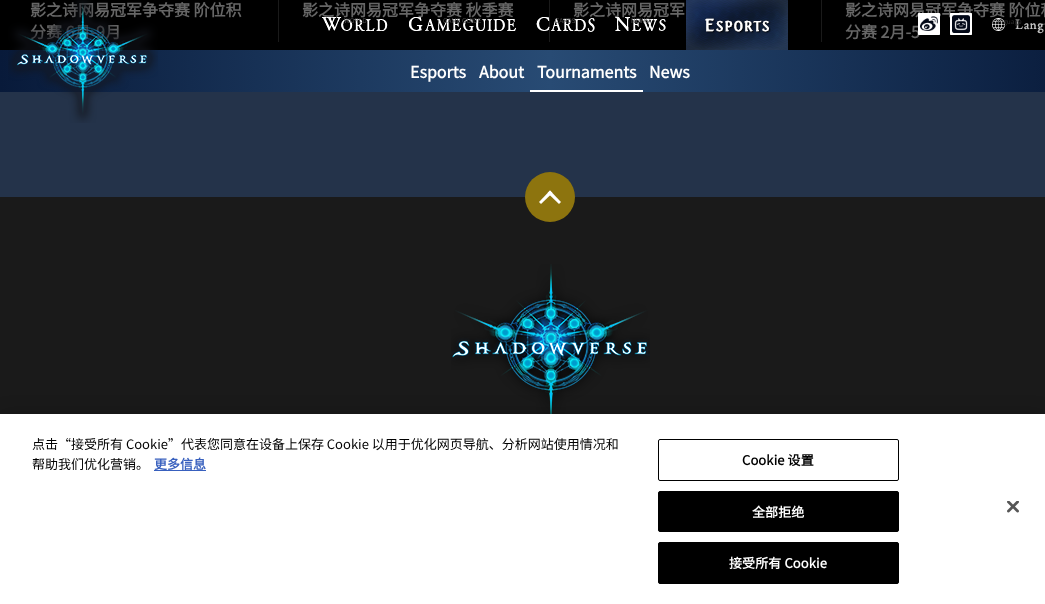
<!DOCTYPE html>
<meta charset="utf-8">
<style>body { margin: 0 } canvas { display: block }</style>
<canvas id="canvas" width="1045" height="604"></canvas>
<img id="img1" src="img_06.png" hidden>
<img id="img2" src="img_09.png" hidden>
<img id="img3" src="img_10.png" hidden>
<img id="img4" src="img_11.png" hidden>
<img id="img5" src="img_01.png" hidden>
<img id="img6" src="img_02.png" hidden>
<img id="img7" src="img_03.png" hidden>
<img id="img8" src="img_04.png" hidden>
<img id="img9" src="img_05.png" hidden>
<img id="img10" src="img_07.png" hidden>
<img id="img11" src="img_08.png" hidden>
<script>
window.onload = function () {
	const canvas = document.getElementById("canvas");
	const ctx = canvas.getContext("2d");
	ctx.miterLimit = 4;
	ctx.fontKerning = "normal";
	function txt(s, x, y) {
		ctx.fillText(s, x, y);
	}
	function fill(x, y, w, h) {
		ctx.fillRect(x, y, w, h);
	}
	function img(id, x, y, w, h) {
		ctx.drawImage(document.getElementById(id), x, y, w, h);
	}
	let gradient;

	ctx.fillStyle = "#24334A";
	fill(0, 0, 1045, 604);
	ctx.fillStyle = "#000000";
	fill(0, 0, 1045, 50);
	ctx.fillStyle = "#1A1A1A";
	fill(278, 0, 1, 42);
	fill(549, 0, 1, 42);
	fill(821, 0, 1, 42);
	img("img1", 686, 0, 102, 50);
	img("img2", 992, 18, 53, 16);
	gradient = ctx.createLinearGradient(0, 71, 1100, 71);
	gradient.addColorStop(0, "#081A3A");
	gradient.addColorStop(0.5, "#284B74");
	gradient.addColorStop(1, "#081A3A");
	ctx.fillStyle = gradient;
	fill(0, 50, 1045, 42);
	ctx.fillStyle = "#FFFFFF";
	fill(530, 90, 113, 2);
	ctx.fillStyle = "#1A1A1A";
	fill(0, 197, 1045, 217);
	ctx.fillStyle = "#8D740E";
	ctx.beginPath();
	ctx.arc(550, 197, 25, 0, Math.PI * 2);
	ctx.fill();
	ctx.fillStyle = "#FFFFFF";
	ctx.beginPath();
	ctx.moveTo(539, 202);
	ctx.lineTo(550, 190.5);
	ctx.lineTo(552.5, 193);
	ctx.lineTo(541, 204);
	ctx.closePath();
	ctx.fill();
	ctx.beginPath();
	ctx.moveTo(550, 190.5);
	ctx.lineTo(561, 202);
	ctx.lineTo(559, 204);
	ctx.lineTo(547.5, 193);
	ctx.closePath();
	ctx.fill();
	img("img3", 451, 264, 199, 150);
	ctx.fillStyle = "rgba(0, 0, 0, 0.2)";
	ctx.filter = "blur(9px)";
	ctx.beginPath();
	ctx.rect(0, 414, 1045, 190);
	ctx.fill();
	ctx.filter = "none";
	ctx.fillStyle = "#FFFFFF";
	fill(0, 414, 1045, 190);
	ctx.fillStyle = "#3860BE";
	fill(154, 470, 52, 1);
	ctx.beginPath();
	ctx.roundRect(658.5, 439.5, 240, 41, 1.5);
	ctx.strokeStyle = "#000000";
	ctx.stroke();
	ctx.fillStyle = "#000000";
	ctx.beginPath();
	ctx.roundRect(658.5, 491.5, 240, 40, 1.5);
	ctx.fill();
	ctx.stroke();
	ctx.beginPath();
	ctx.roundRect(658.5, 542.5, 240, 41, 1.5);
	ctx.fill();
	ctx.stroke();
	img("img4", 1007, 501, 12, 12);
	ctx.font = "bold 16px Noto Sans SC";
	ctx.fillStyle = "#666666";
	txt("影之诗网易冠军争夺赛 阶位积", 30, 16);
	txt("分赛 6月-9月", 30, 38);
	txt("影之诗网易冠军争夺赛 秋季赛", 302, 16);
	txt("影之诗网易冠军", 573, 16);
	txt("影之诗网易冠军争夺赛 阶位积", 845, 16);
	txt("分赛 2月-5", 845, 38);
	img("img5", 8, 0, 150, 123);
	img("img6", 322, 17, 66, 14);
	ctx.font = "100 6.5px Noto Sans SC";
	ctx.fillStyle = "#484848";
	txt("WORLD", 344, 23);
	img("img7", 409, 17, 107, 14);
	txt("GAME GUIDE", 443, 23);
	img("img8", 536, 17, 59, 15);
	txt("CARDS", 555, 23);
	img("img9", 615, 17, 51, 14);
	ctx.fillStyle = "#5F5F5F";
	txt("NEWS", 631, 23);
	img("img10", 918, 13, 22, 22);
	img("img11", 950, 13, 22, 22);
	ctx.fillStyle = "#2F2F2F";
	txt("Language", 992, 24);
	ctx.font = "bold 16px Noto Sans SC";
	ctx.fillStyle = "#FFFFFF";
	txt("Esports", 410, 78);
	txt("About", 479, 78);
	txt("Tournaments", 537, 78);
	txt("News", 649, 78);
	ctx.font = "100 13px Noto Sans SC";
	ctx.fillStyle = "#000000";
	txt("点击“接受所有 Cookie”代表您同意在设备上保存 Cookie 以用于优化网页导航、分析网站使用情况和", 32, 449);
	txt("帮助我们优化营销。", 32, 469);
	ctx.font = "bold 13px Noto Sans SC";
	ctx.fillStyle = "#3860BE";
	txt("更多信息", 154, 469);
	ctx.letterSpacing = "0.1px";
	ctx.fillStyle = "#000000";
	txt("Cookie 设置", 742, 465);
	ctx.fillStyle = "#FFFFFF";
	txt("全部拒绝", 752, 517);
	txt("接受所有 Cookie", 729, 568);
};
</script>
